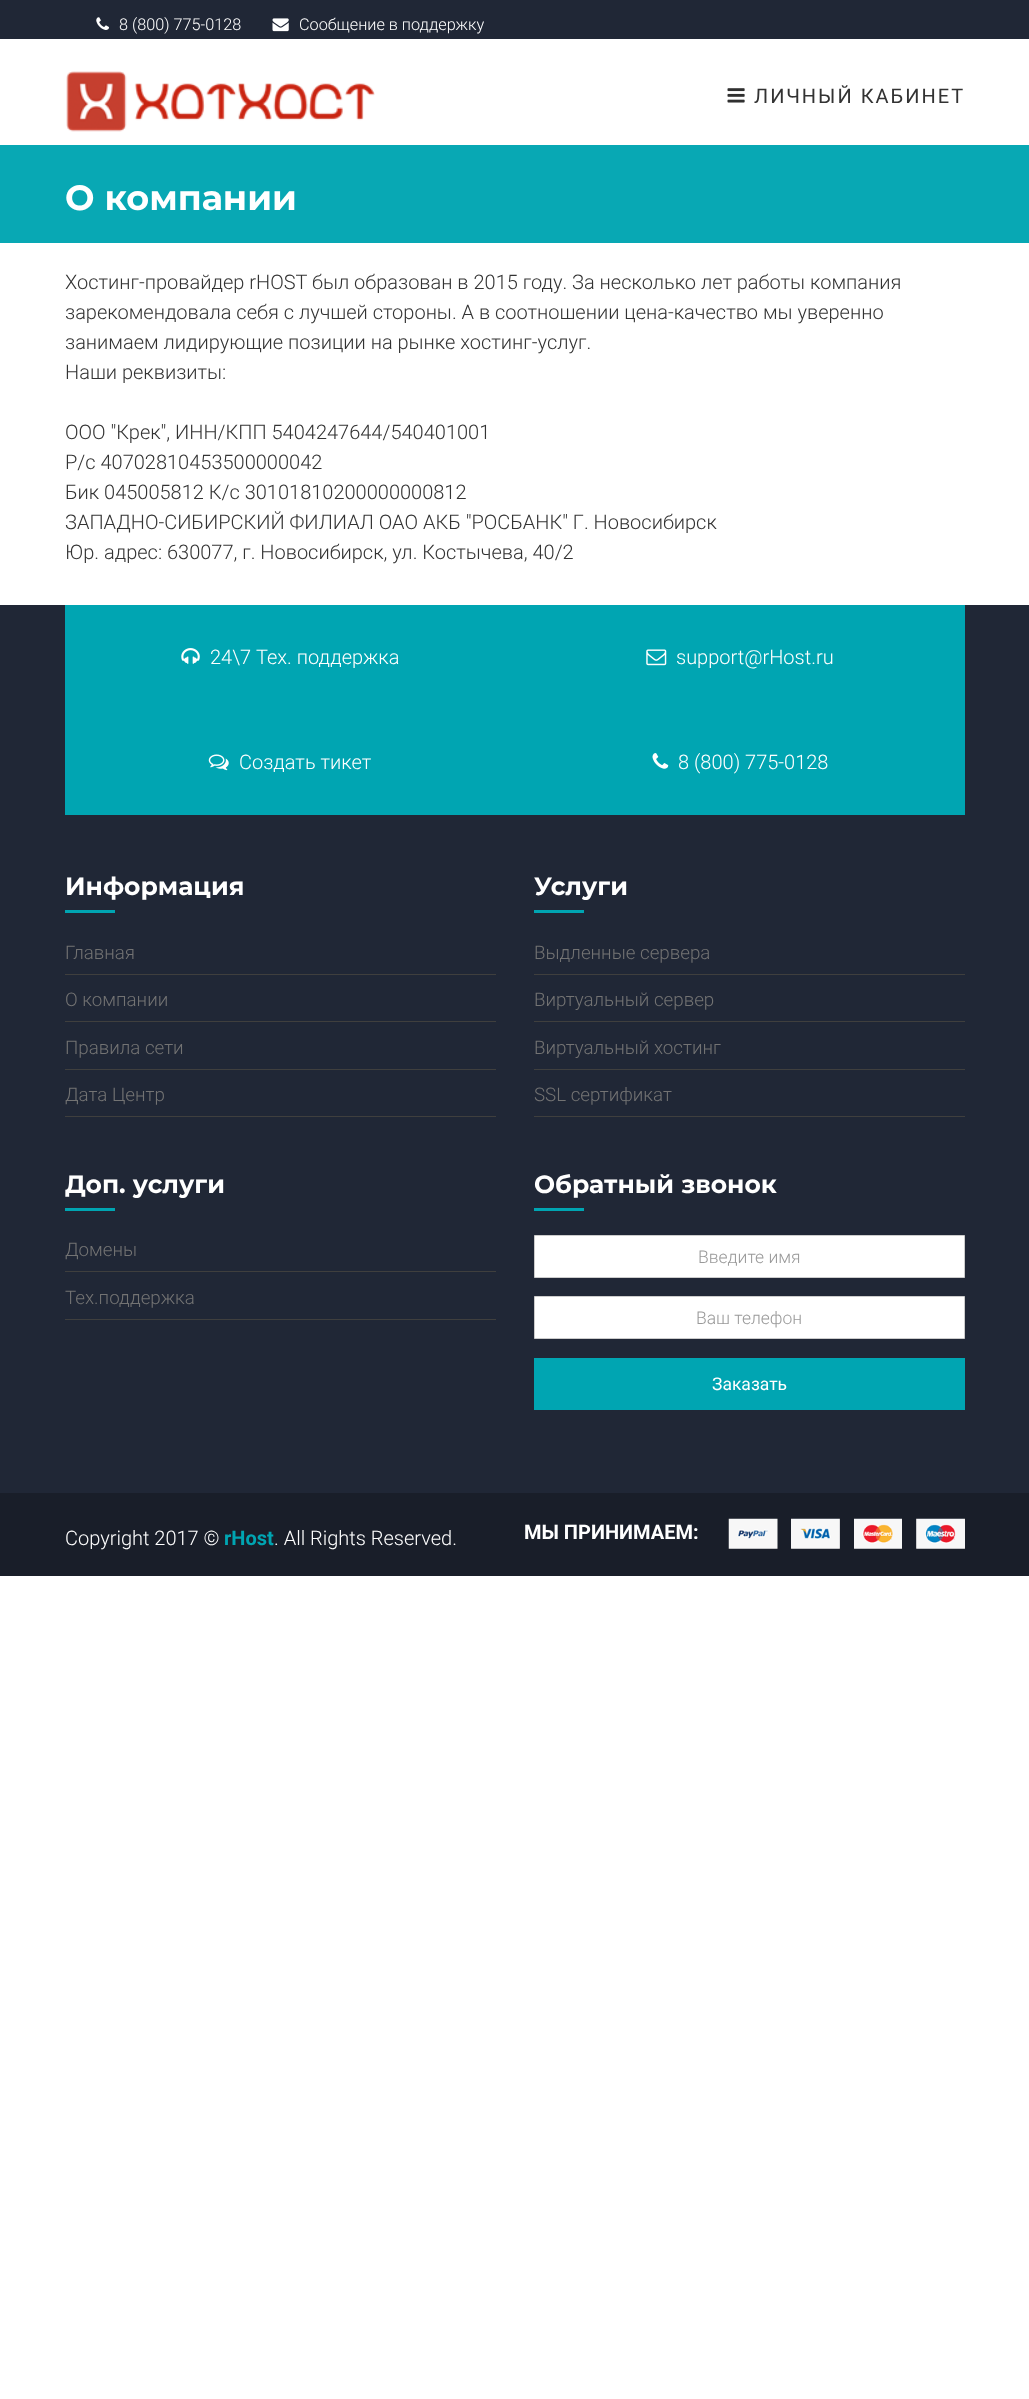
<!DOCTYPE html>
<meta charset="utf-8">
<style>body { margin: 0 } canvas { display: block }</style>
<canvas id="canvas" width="1029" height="2399"></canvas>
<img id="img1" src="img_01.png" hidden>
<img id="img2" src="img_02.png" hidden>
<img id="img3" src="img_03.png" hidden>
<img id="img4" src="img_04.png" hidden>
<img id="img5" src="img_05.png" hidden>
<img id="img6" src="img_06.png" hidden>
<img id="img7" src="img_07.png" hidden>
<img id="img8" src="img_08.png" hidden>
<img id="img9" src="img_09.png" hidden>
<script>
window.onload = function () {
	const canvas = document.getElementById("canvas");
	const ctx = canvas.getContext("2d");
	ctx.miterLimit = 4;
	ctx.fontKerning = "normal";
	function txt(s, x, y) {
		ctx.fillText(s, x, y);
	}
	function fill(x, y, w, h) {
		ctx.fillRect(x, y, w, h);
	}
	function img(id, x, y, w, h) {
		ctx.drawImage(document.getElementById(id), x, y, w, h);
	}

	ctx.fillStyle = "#FFFFFF";
	fill(0, 0, 1029, 2399);
	ctx.fillStyle = "#202736";
	fill(0, 0, 1029, 39);
	img("img1", 96, 17, 13, 13);
	img("img2", 272, 18, 17, 14);
	img("img3", 66, 71, 309, 61);
	img("img4", 727, 88, 18, 15);
	ctx.fillStyle = "#08A8B4";
	fill(0, 145, 1029, 98);
	ctx.fillStyle = "#202736";
	fill(0, 605, 1029, 888);
	ctx.fillStyle = "#00A5B2";
	fill(65, 605, 900, 105);
	img("img5", 181, 648, 19, 16);
	img("img6", 646, 649, 21, 17);
	fill(65, 710, 900, 105);
	img("img7", 208, 754, 21, 17);
	img("img8", 652, 753, 17, 16);
	fill(65, 910, 50, 3);
	ctx.fillStyle = "#3F3F3E";
	fill(65, 974, 431, 1);
	fill(65, 1021, 431, 1);
	fill(65, 1069, 431, 1);
	fill(65, 1116, 431, 1);
	ctx.fillStyle = "#00A5B2";
	fill(534, 910, 50, 3);
	ctx.fillStyle = "#3F3F3E";
	fill(534, 974, 431, 1);
	fill(534, 1021, 431, 1);
	fill(534, 1069, 431, 1);
	fill(534, 1116, 431, 1);
	ctx.fillStyle = "#00A5B2";
	fill(65, 1208, 50, 3);
	ctx.fillStyle = "#3F3F3E";
	fill(65, 1271, 431, 1);
	fill(65, 1319, 431, 1);
	ctx.fillStyle = "#00A5B2";
	fill(534, 1208, 50, 3);
	ctx.fillStyle = "#FFFFFF";
	ctx.beginPath();
	ctx.rect(534.5, 1235.5, 430, 42);
	ctx.fill();
	ctx.strokeStyle = "#CCCCCC";
	ctx.stroke();
	ctx.beginPath();
	ctx.rect(534.5, 1296.5, 430, 42);
	ctx.fill();
	ctx.stroke();
	ctx.fillStyle = "#00A5B2";
	fill(534, 1358, 431, 52);
	ctx.fillStyle = "#191E29";
	fill(0, 1493, 1029, 83);
	img("img9", 728, 1518, 237, 31);
	ctx.font = "300 16.25px Roboto";
	ctx.fillStyle = "#FFFFFF";
	txt("8 (800) 775-0128", 119, 30);
	txt("Сообщение в поддержку", 299, 30);
	ctx.letterSpacing = "2px";
	ctx.font = "20px Roboto";
	ctx.fillStyle = "#333333";
	txt("ЛИЧНЫЙ КАБИНЕТ", 754, 103);
	ctx.letterSpacing = "0px";
	ctx.font = "100 35px Montserrat";
	ctx.fillStyle = "#FFFFFF";
	txt("О компании", 65, 210);
	ctx.font = "300 20px Roboto";
	ctx.fillStyle = "#333333";
	txt("Хостинг-провайдер rHOST был образован в 2015 году. За несколько лет работы компания", 65, 289);
	txt("зарекомендовала себя с лучшей стороны. А в соотношении цена-качество мы уверенно", 65, 319);
	txt("занимаем лидирующие позиции на рынке хостинг-услуг.", 65, 349);
	txt("Наши реквизиты:", 65, 379);
	txt("ООО \"Крек\", ИНН/КПП 5404247644/540401001", 65, 439);
	txt("Р/с 40702810453500000042", 65, 469);
	txt("Бик 045005812 К/с 30101810200000000812", 65, 499);
	txt("ЗАПАДНО-СИБИРСКИЙ ФИЛИАЛ ОАО АКБ \"РОСБАНК\" Г. Новосибирск", 65, 529);
	txt("Юр. адрес: 630077, г. Новосибирск, ул. Костычева, 40/2", 65, 559);
	ctx.fillStyle = "#FFFFFF";
	txt("24\\7 Тех. поддержка", 210, 664);
	txt("support@rHost.ru", 676, 664);
	txt("Создать тикет", 239, 769);
	txt("8 (800) 775-0128", 678, 769);
	ctx.font = "100 25px Montserrat";
	txt("Информация", 65, 895);
	ctx.font = "300 18.75px Roboto";
	ctx.fillStyle = "#737373";
	txt("Главная", 65, 959);
	txt("О компании", 65, 1006);
	txt("Правила сети", 65, 1054);
	txt("Дата Центр", 65, 1101);
	ctx.font = "100 25px Montserrat";
	ctx.fillStyle = "#FFFFFF";
	txt("Услуги", 534, 895);
	ctx.font = "300 18.75px Roboto";
	ctx.fillStyle = "#737373";
	txt("Выдленные сервера", 534, 959);
	txt("Виртуальный сервер", 534, 1006);
	txt("Виртуальный хостинг", 534, 1054);
	txt("SSL сертификат", 534, 1101);
	ctx.font = "100 25px Montserrat";
	ctx.fillStyle = "#FFFFFF";
	txt("Доп. услуги", 65, 1193);
	ctx.font = "300 18.75px Roboto";
	ctx.fillStyle = "#737373";
	txt("Домены", 65, 1256);
	txt("Тех.поддержка", 65, 1304);
	ctx.font = "100 25px Montserrat";
	ctx.fillStyle = "#FFFFFF";
	txt("Обратный звонок", 534, 1193);
	ctx.font = "300 17.5px Roboto";
	ctx.fillStyle = "#999999";
	txt("Введите имя", 698, 1263);
	txt("Ваш телефон", 696, 1324);
	ctx.font = "17.5px Roboto";
	ctx.fillStyle = "#FFFFFF";
	txt("Заказать", 712, 1390);
	ctx.font = "300 20px Roboto";
	txt("Copyright 2017 ©", 65, 1545);
	ctx.font = "bold 20px Roboto";
	ctx.fillStyle = "#00A5B2";
	txt("rHost", 224, 1545);
	ctx.font = "300 20px Roboto";
	ctx.fillStyle = "#FFFFFF";
	txt(". All Rights Reserved.", 274, 1545);
	ctx.font = "bold 20px Roboto";
	txt("МЫ ПРИНИМАЕМ:", 524, 1539);
};
</script>
